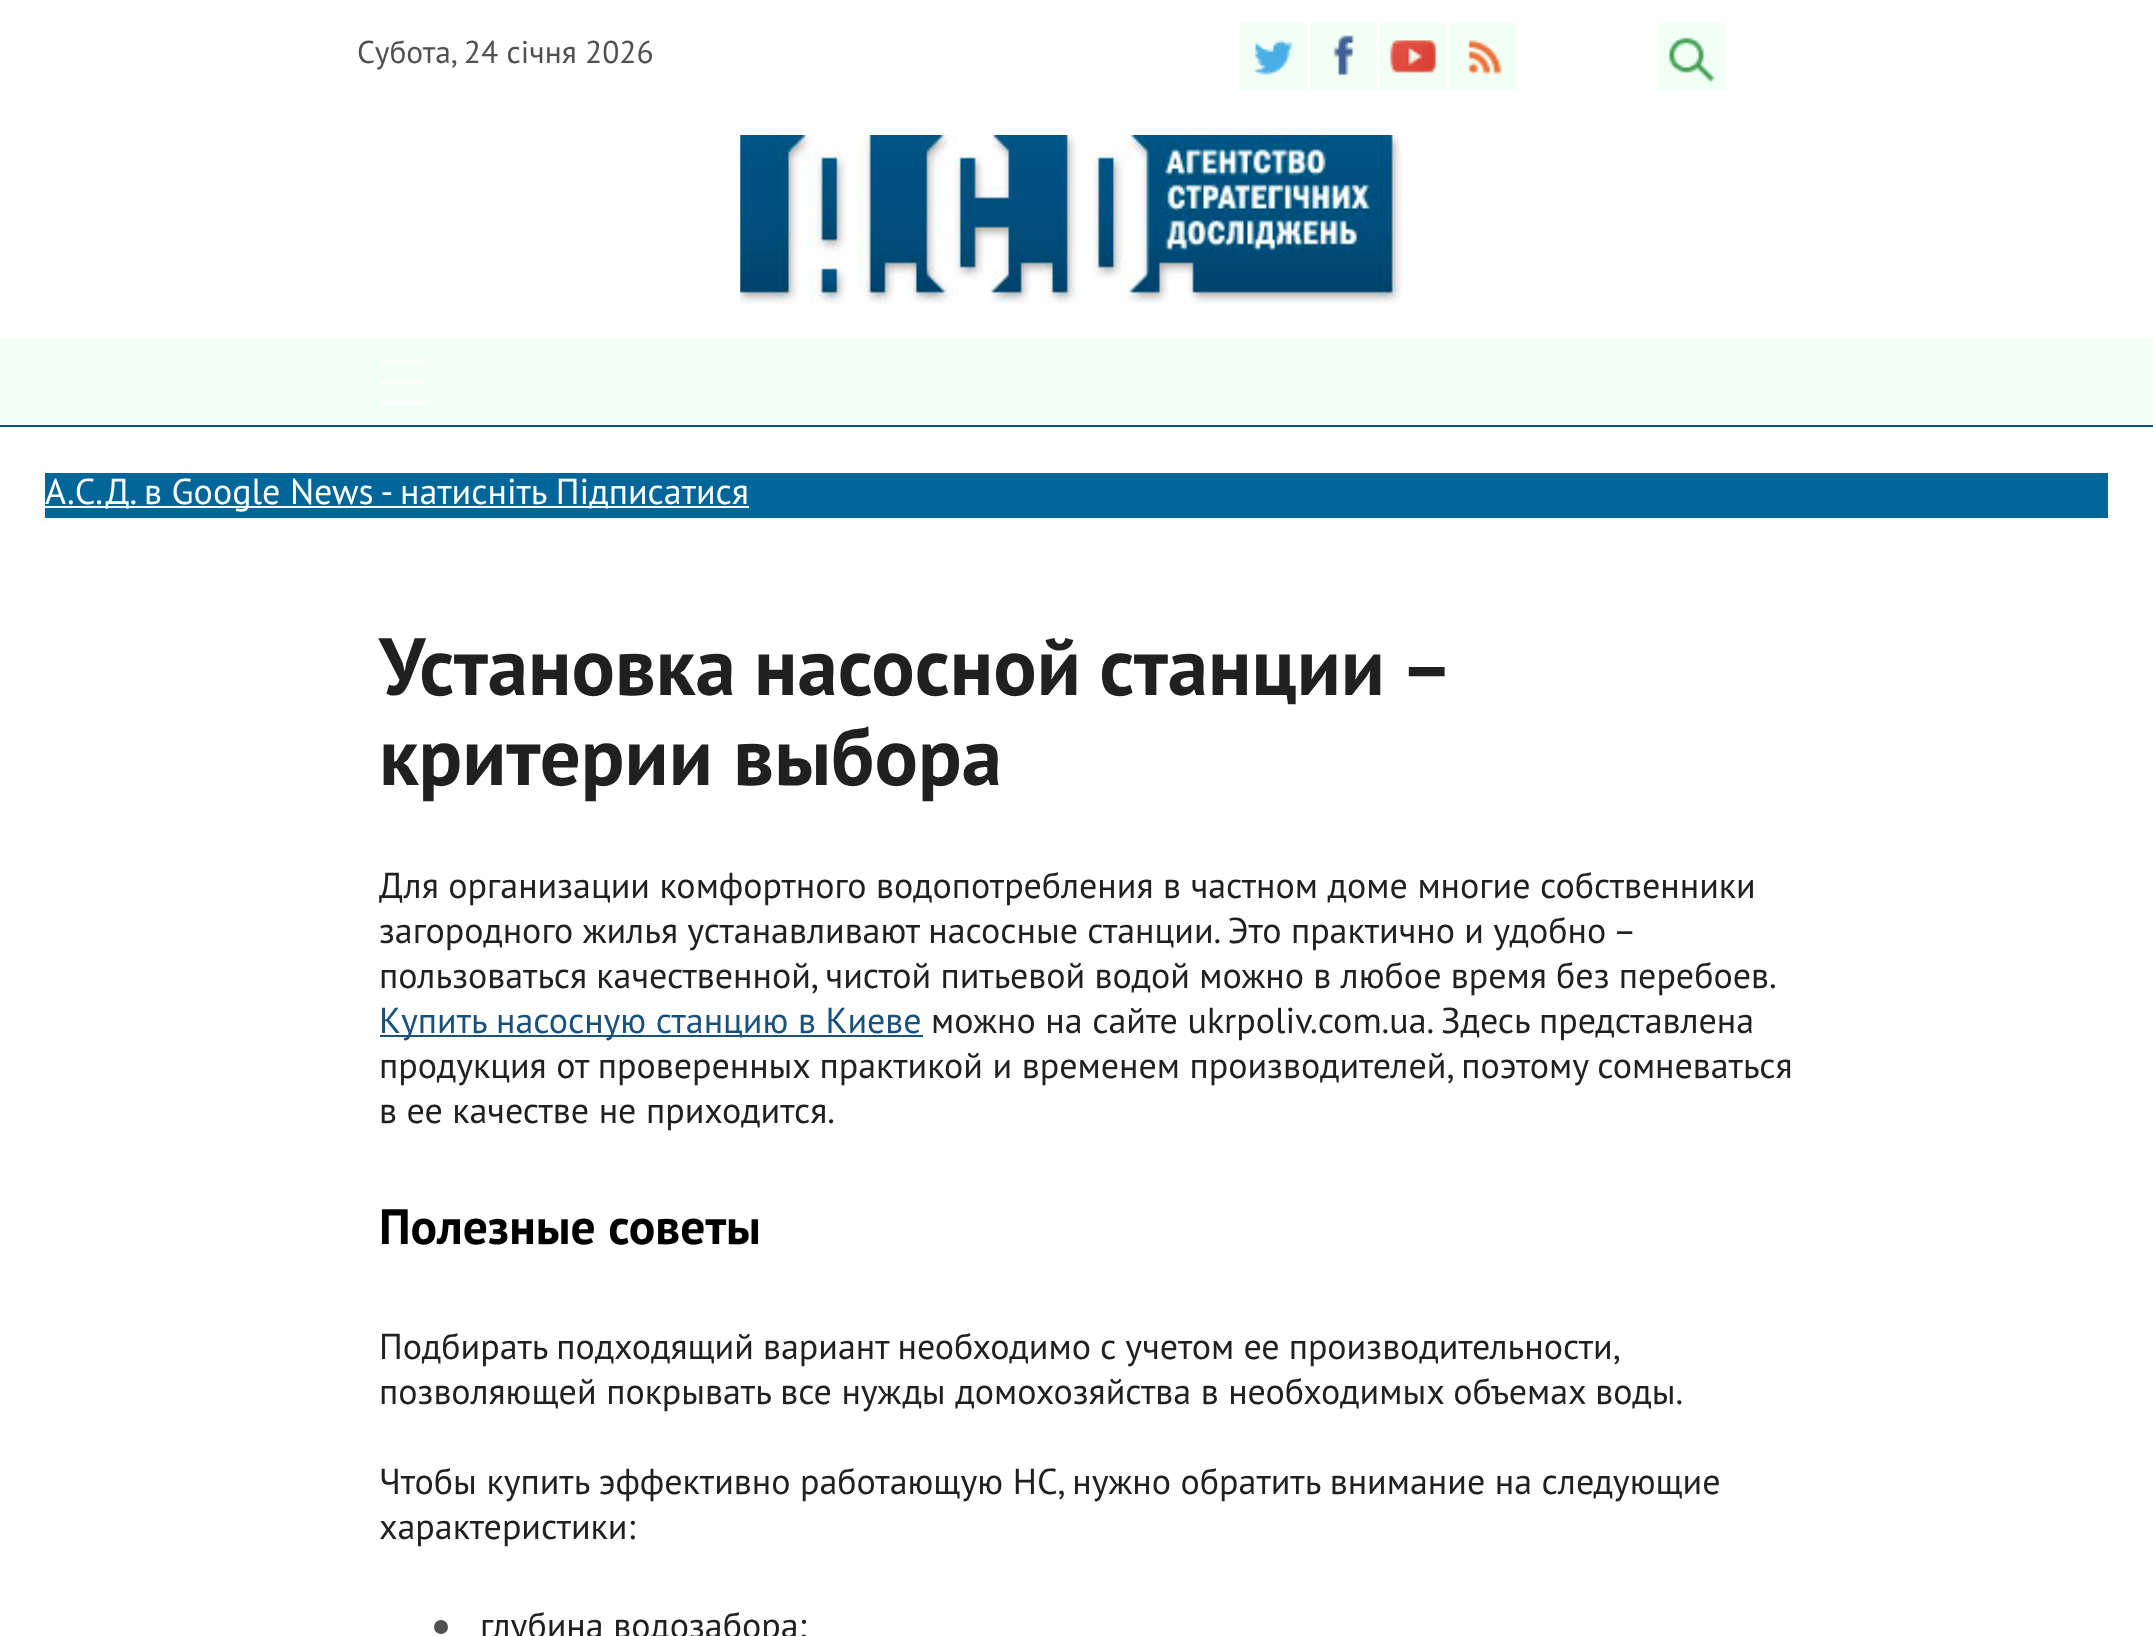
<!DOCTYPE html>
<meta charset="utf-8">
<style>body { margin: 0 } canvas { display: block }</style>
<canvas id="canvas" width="2153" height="1636"></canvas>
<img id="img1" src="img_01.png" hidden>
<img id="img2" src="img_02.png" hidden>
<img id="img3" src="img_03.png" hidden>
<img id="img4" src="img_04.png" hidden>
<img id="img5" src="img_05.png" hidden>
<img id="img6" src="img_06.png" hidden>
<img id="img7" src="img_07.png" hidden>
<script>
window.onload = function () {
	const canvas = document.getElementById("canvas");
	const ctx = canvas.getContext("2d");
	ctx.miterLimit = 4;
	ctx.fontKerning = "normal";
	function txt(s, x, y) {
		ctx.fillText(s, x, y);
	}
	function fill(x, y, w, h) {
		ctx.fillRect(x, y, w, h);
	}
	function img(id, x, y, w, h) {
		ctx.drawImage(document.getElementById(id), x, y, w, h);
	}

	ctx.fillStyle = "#FFFFFF";
	fill(0, 0, 2153, 1636);
	ctx.fillStyle = "#F2FFF4";
	fill(1240, 23, 67, 67);
	img("img1", 1253, 40, 41, 35);
	fill(1310, 23, 67, 67);
	img("img2", 1333, 35, 22, 42);
	fill(1379, 23, 68, 67);
	img("img3", 1390, 40, 47, 33);
	fill(1449, 23, 68, 67);
	img("img4", 1467, 40, 35, 35);
	fill(1658, 23, 68, 67);
	img("img5", 1669, 37, 47, 45);
	img("img6", 740, 135, 662, 169);
	fill(0, 338, 2153, 90);
	ctx.fillStyle = "#18517C";
	fill(0, 425, 2153, 2);
	img("img7", 380, 360, 46, 45);
	ctx.fillStyle = "#006699";
	fill(45, 473, 2063, 45);
	ctx.fillStyle = "#FFFFFF";
	fill(45, 506, 704, 2);
	ctx.fillStyle = "#18517C";
	fill(380, 1035, 543, 2);
	ctx.fillStyle = "#505050";
	ctx.beginPath();
	ctx.arc(441, 1627, 7, 0, Math.PI * 2);
	ctx.fill();
	ctx.font = "31.5px PT Sans";
	txt("Субота, 24 січня 2026", 357, 63);
	ctx.font = "36px PT Sans";
	ctx.fillStyle = "#FFFFFF";
	txt("А.С.Д. в Google News - натисніть Підписатися", 45, 504);
	ctx.wordSpacing = "-2px";
	ctx.font = "bold 81px PT Sans";
	ctx.fillStyle = "#202020";
	txt("Установка насосной станции –", 379, 695);
	ctx.wordSpacing = "0px";
	txt("критерии выбора", 379, 785);
	ctx.font = "36px PT Sans";
	txt("Для организации комфортного водопотребления в частном доме многие собственники", 379, 898);
	ctx.wordSpacing = "-0.25px";
	txt("загородного жилья устанавливают насосные станции. Это практично и удобно –", 379, 943);
	txt("пользоваться качественной, чистой питьевой водой можно в любое время без перебоев.", 379, 988);
	ctx.wordSpacing = "0px";
	ctx.fillStyle = "#18517C";
	txt("Купить насосную станцию в Киеве", 379, 1033);
	ctx.fillStyle = "#202020";
	txt("можно на сайте ukrpoliv.com.ua. Здесь представлена", 931, 1033);
	txt("продукция от проверенных практикой и временем производителей, поэтому сомневаться", 379, 1078);
	txt("в ее качестве не приходится.", 379, 1123);
	ctx.font = "bold 49.5px PT Sans";
	ctx.fillStyle = "#000000";
	txt("Полезные советы", 379, 1244);
	ctx.wordSpacing = "-0.5px";
	ctx.font = "36px PT Sans";
	ctx.fillStyle = "#202020";
	txt("Подбирать подходящий вариант необходимо с учетом ее производительности,", 379, 1359);
	ctx.wordSpacing = "0px";
	txt("позволяющей покрывать все нужды домохозяйства в необходимых объемах воды.", 379, 1404);
	txt("Чтобы купить эффективно работающую НС, нужно обратить внимание на следующие", 379, 1494);
	txt("характеристики:", 379, 1539);
	txt("глубина водозабора;", 480, 1638);
};
</script>
